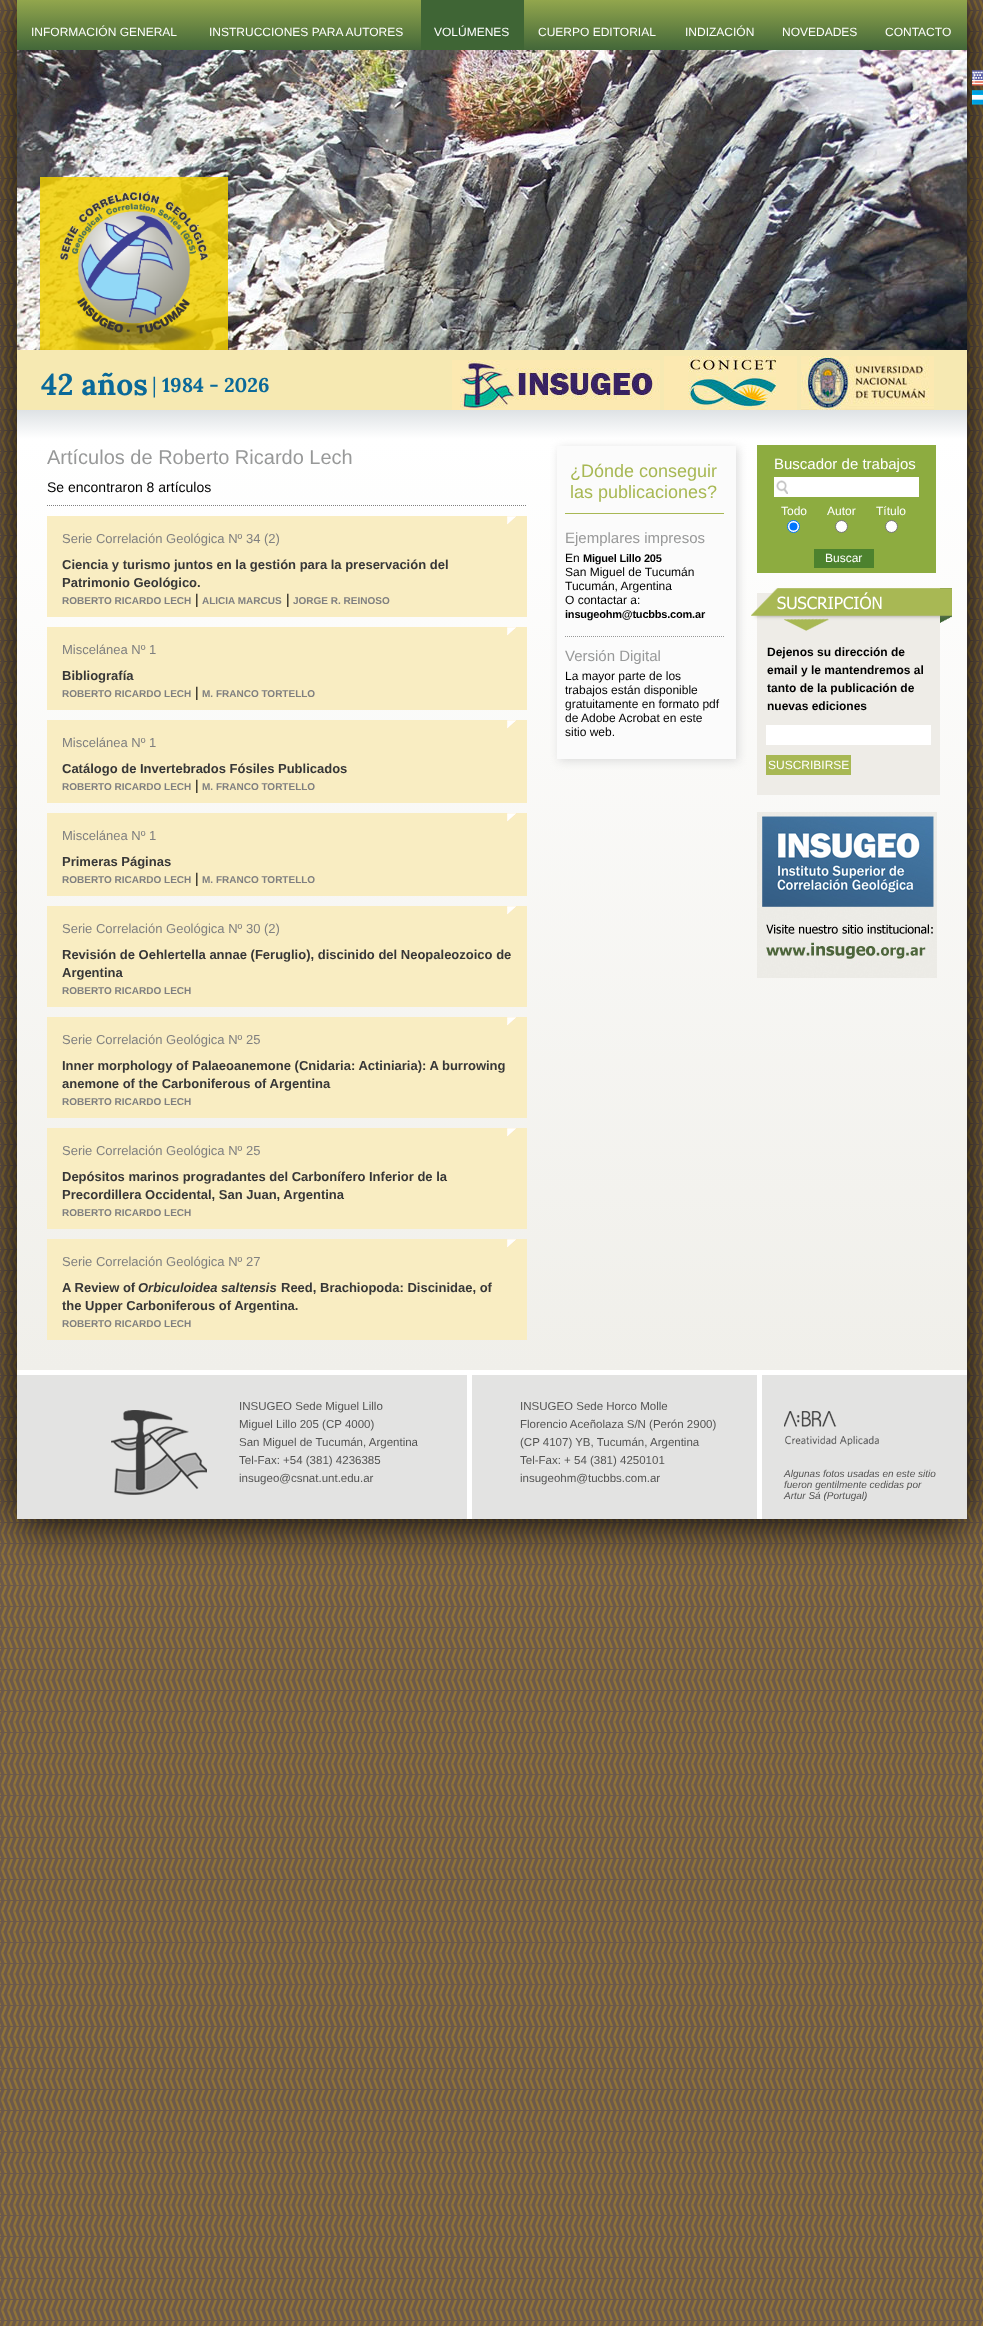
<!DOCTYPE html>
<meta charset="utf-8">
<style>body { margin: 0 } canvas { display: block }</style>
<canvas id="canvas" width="983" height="2326"></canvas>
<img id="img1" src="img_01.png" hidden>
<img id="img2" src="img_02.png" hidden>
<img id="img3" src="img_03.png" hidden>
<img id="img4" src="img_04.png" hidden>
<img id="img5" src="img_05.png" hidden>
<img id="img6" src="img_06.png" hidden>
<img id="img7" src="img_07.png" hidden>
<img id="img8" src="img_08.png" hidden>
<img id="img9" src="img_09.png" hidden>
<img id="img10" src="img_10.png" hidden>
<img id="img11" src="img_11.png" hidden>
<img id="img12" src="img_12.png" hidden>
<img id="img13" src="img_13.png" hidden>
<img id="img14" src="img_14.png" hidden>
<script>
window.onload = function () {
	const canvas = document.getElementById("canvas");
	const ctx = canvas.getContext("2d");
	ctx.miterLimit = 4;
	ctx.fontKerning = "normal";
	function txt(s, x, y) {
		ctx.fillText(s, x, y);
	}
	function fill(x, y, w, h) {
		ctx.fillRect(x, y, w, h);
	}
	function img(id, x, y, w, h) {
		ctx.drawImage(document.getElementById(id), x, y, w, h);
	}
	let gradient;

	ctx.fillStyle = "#6C594B";
	fill(0, 0, 983, 2326);
	img("img1", 0, 0, 983, 2326);
	ctx.fillStyle = "#000000";
	ctx.filter = "blur(22.5px)";
	ctx.beginPath();
	ctx.rect(17, 2, 950, 1519);
	ctx.fill();
	ctx.filter = "none";
	ctx.fillStyle = "#FFFFFF";
	fill(17, 1370, 950, 149);
	gradient = ctx.createLinearGradient(492, 0, 492, 50);
	gradient.addColorStop(0, "#92A64D");
	gradient.addColorStop(1, "#436739");
	ctx.fillStyle = gradient;
	fill(17, 0, 950, 50);
	ctx.fillStyle = "#3F6535";
	fill(421, 0, 103, 50);
	ctx.fillStyle = "#F6E9B2";
	fill(17, 350, 950, 60);
	img("img2", 17, 50, 950, 300);
	img("img3", 972, 70, 11, 16);
	img("img4", 972, 90, 11, 15);
	ctx.fillStyle = "rgba(241, 207, 0, 0.85)";
	fill(40, 177, 188, 173);
	img("img5", 60, 191, 148, 155);
	img("img6", 452, 360, 208, 50);
	img("img7", 664, 356, 133, 54);
	img("img8", 801, 356, 133, 54);
	gradient = ctx.createLinearGradient(492, 410, 492, 1370);
	gradient.addColorStop(0, "#DEE2E5");
	gradient.addColorStop(0.03, "#FFFFFF");
	gradient.addColorStop(1, "#F0EFEA");
	ctx.fillStyle = gradient;
	fill(17, 410, 950, 960);
	ctx.beginPath();
	ctx.moveTo(47, 505.5);
	ctx.lineTo(527, 505.5);
	ctx.strokeStyle = "#808080";
	ctx.setLineDash([1, 1]);
	ctx.stroke();
	ctx.fillStyle = "#F9EDC2";
	fill(47, 516, 480, 101);
	img("img9", 507, 516, 10, 9);
	fill(47, 627, 480, 83);
	img("img9", 507, 627, 10, 9);
	fill(47, 720, 480, 83);
	img("img9", 507, 720, 10, 9);
	fill(47, 813, 480, 83);
	img("img9", 507, 813, 10, 9);
	fill(47, 906, 480, 101);
	img("img9", 507, 906, 10, 9);
	fill(47, 1017, 480, 101);
	img("img9", 507, 1017, 10, 9);
	fill(47, 1128, 480, 101);
	img("img9", 507, 1128, 10, 9);
	fill(47, 1239, 480, 101);
	img("img9", 507, 1239, 10, 9);
	ctx.fillStyle = "#DADADA";
	ctx.filter = "blur(5px)";
	ctx.beginPath();
	ctx.rect(559, 448, 179, 313);
	ctx.fill();
	ctx.filter = "none";
	ctx.fillStyle = "#FBFBFB";
	fill(557, 446, 179, 313);
	ctx.fillStyle = "#A8B854";
	fill(565, 513, 159, 1);
	ctx.beginPath();
	ctx.moveTo(565, 636.5);
	ctx.lineTo(724, 636.5);
	ctx.strokeStyle = "#989999";
	ctx.stroke();
	ctx.fillStyle = "#8DAC40";
	fill(757, 445, 179, 128);
	ctx.fillStyle = "#FFFFFF";
	fill(774, 477, 145, 20);
	img("img10", 776, 480, 12, 14);
	ctx.beginPath();
	ctx.arc(793.5, 526.5, 6, 0, Math.PI * 2);
	ctx.fill();
	ctx.strokeStyle = "#0075FF";
	ctx.setLineDash([]);
	ctx.stroke();
	ctx.fillStyle = "#0075FF";
	ctx.beginPath();
	ctx.arc(793.5, 526.5, 4, 0, Math.PI * 2);
	ctx.fill();
	ctx.fillStyle = "#FFFFFF";
	ctx.beginPath();
	ctx.arc(841.5, 526.5, 6, 0, Math.PI * 2);
	ctx.fill();
	ctx.strokeStyle = "#767676";
	ctx.stroke();
	ctx.beginPath();
	ctx.arc(891.5, 526.5, 6, 0, Math.PI * 2);
	ctx.fill();
	ctx.stroke();
	ctx.fillStyle = "#4D822E";
	fill(814, 549, 60, 19);
	ctx.fillStyle = "#EEECE7";
	fill(757, 593, 183, 202);
	img("img11", 751, 588, 201, 43);
	ctx.fillStyle = "#FFFFFF";
	fill(766, 725, 165, 20);
	ctx.fillStyle = "#A8B854";
	fill(766, 755, 85, 20);
	img("img12", 757, 812, 180, 166);
	ctx.fillStyle = "#E3E3E2";
	fill(17, 1375, 450, 144);
	img("img13", 111, 1410, 96, 85);
	fill(472, 1375, 285, 144);
	fill(762, 1375, 205, 144);
	img("img14", 784, 1411, 95, 35);
	ctx.font = "12px Liberation Sans";
	ctx.fillStyle = "#FFFFFF";
	txt("INFORMACIÓN GENERAL", 31, 36);
	txt("INSTRUCCIONES PARA AUTORES", 209, 36);
	txt("VOLÚMENES", 434, 36);
	txt("CUERPO EDITORIAL", 538, 36);
	txt("INDIZACIÓN", 685, 36);
	txt("NOVEDADES", 782, 36);
	txt("CONTACTO", 885, 36);
	ctx.font = "bold 30px Lora";
	ctx.fillStyle = "#0A6999";
	txt("42 años", 41, 395);
	ctx.font = "20px Lora";
	txt("|", 152, 392);
	ctx.font = "bold 20px Lora";
	txt("1984 - 2026", 162, 392);
	ctx.font = "20px Liberation Sans";
	ctx.fillStyle = "#989999";
	txt("Artículos de Roberto Ricardo Lech", 47, 464);
	ctx.font = "14px Liberation Sans";
	ctx.fillStyle = "#000000";
	txt("Se encontraron 8 artículos", 47, 492);
	ctx.font = "13px Liberation Sans";
	ctx.fillStyle = "#808080";
	txt("Serie Correlación Geológica Nº 34 (2)", 62, 543);
	ctx.font = "bold 13px Liberation Sans";
	ctx.fillStyle = "#373737";
	txt("Ciencia y turismo juntos en la gestión para la preservación del", 62, 569);
	txt("Patrimonio Geológico.", 62, 587);
	ctx.font = "bold 10px Liberation Sans";
	ctx.fillStyle = "#808080";
	txt("ROBERTO RICARDO LECH", 62, 604);
	ctx.font = "14px Liberation Sans";
	ctx.fillStyle = "#000000";
	txt("|", 195, 604);
	ctx.font = "bold 10px Liberation Sans";
	ctx.fillStyle = "#808080";
	txt("ALICIA MARCUS", 202, 604);
	ctx.font = "14px Liberation Sans";
	ctx.fillStyle = "#000000";
	txt("|", 286, 604);
	ctx.font = "bold 10px Liberation Sans";
	ctx.fillStyle = "#808080";
	txt("JORGE R. REINOSO", 293, 604);
	ctx.font = "13px Liberation Sans";
	txt("Miscelánea Nº 1", 62, 654);
	ctx.font = "bold 13px Liberation Sans";
	ctx.fillStyle = "#373737";
	txt("Bibliografía", 62, 680);
	ctx.font = "bold 10px Liberation Sans";
	ctx.fillStyle = "#808080";
	txt("ROBERTO RICARDO LECH", 62, 697);
	ctx.font = "14px Liberation Sans";
	ctx.fillStyle = "#000000";
	txt("|", 195, 697);
	ctx.font = "bold 10px Liberation Sans";
	ctx.fillStyle = "#808080";
	txt("M. FRANCO TORTELLO", 202, 697);
	ctx.font = "13px Liberation Sans";
	txt("Miscelánea Nº 1", 62, 747);
	ctx.font = "bold 13px Liberation Sans";
	ctx.fillStyle = "#373737";
	txt("Catálogo de Invertebrados Fósiles Publicados", 62, 773);
	ctx.font = "bold 10px Liberation Sans";
	ctx.fillStyle = "#808080";
	txt("ROBERTO RICARDO LECH", 62, 790);
	ctx.font = "14px Liberation Sans";
	ctx.fillStyle = "#000000";
	txt("|", 195, 790);
	ctx.font = "bold 10px Liberation Sans";
	ctx.fillStyle = "#808080";
	txt("M. FRANCO TORTELLO", 202, 790);
	ctx.font = "13px Liberation Sans";
	txt("Miscelánea Nº 1", 62, 840);
	ctx.font = "bold 13px Liberation Sans";
	ctx.fillStyle = "#373737";
	txt("Primeras Páginas", 62, 866);
	ctx.font = "bold 10px Liberation Sans";
	ctx.fillStyle = "#808080";
	txt("ROBERTO RICARDO LECH", 62, 883);
	ctx.font = "14px Liberation Sans";
	ctx.fillStyle = "#000000";
	txt("|", 195, 883);
	ctx.font = "bold 10px Liberation Sans";
	ctx.fillStyle = "#808080";
	txt("M. FRANCO TORTELLO", 202, 883);
	ctx.font = "13px Liberation Sans";
	txt("Serie Correlación Geológica Nº 30 (2)", 62, 933);
	ctx.font = "bold 13px Liberation Sans";
	ctx.fillStyle = "#373737";
	txt("Revisión de Oehlertella annae (Feruglio), discinido del Neopaleozoico de", 62, 959);
	txt("Argentina", 62, 977);
	ctx.font = "bold 10px Liberation Sans";
	ctx.fillStyle = "#808080";
	txt("ROBERTO RICARDO LECH", 62, 994);
	ctx.font = "13px Liberation Sans";
	txt("Serie Correlación Geológica Nº 25", 62, 1044);
	ctx.font = "bold 13px Liberation Sans";
	ctx.fillStyle = "#373737";
	txt("Inner morphology of Palaeoanemone (Cnidaria: Actiniaria): A burrowing", 62, 1070);
	txt("anemone of the Carboniferous of Argentina", 62, 1088);
	ctx.font = "bold 10px Liberation Sans";
	ctx.fillStyle = "#808080";
	txt("ROBERTO RICARDO LECH", 62, 1105);
	ctx.font = "13px Liberation Sans";
	txt("Serie Correlación Geológica Nº 25", 62, 1155);
	ctx.font = "bold 13px Liberation Sans";
	ctx.fillStyle = "#373737";
	txt("Depósitos marinos progradantes del Carbonífero Inferior de la", 62, 1181);
	txt("Precordillera Occidental, San Juan, Argentina", 62, 1199);
	ctx.font = "bold 10px Liberation Sans";
	ctx.fillStyle = "#808080";
	txt("ROBERTO RICARDO LECH", 62, 1216);
	ctx.font = "13px Liberation Sans";
	txt("Serie Correlación Geológica Nº 27", 62, 1266);
	ctx.font = "bold 13px Liberation Sans";
	ctx.fillStyle = "#373737";
	txt("A Review of", 62, 1292);
	ctx.font = "italic bold 13px Liberation Sans";
	txt("Orbiculoidea saltensis", 138, 1292);
	ctx.font = "bold 13px Liberation Sans";
	txt("Reed, Brachiopoda: Discinidae, of", 281, 1292);
	txt("the Upper Carboniferous of Argentina.", 62, 1310);
	ctx.font = "bold 10px Liberation Sans";
	ctx.fillStyle = "#808080";
	txt("ROBERTO RICARDO LECH", 62, 1327);
	ctx.font = "18px Liberation Sans";
	ctx.fillStyle = "#A8B854";
	txt("¿Dónde conseguir", 570, 477);
	txt("las publicaciones?", 570, 498);
	ctx.font = "15px Liberation Sans";
	ctx.fillStyle = "#989999";
	txt("Ejemplares impresos", 565, 543);
	ctx.font = "12px Liberation Sans";
	ctx.fillStyle = "#000000";
	txt("En", 565, 562);
	ctx.letterSpacing = "-0.2px";
	ctx.font = "bold 11px Liberation Sans";
	txt("Miguel Lillo 205", 583, 562);
	ctx.letterSpacing = "0px";
	ctx.font = "12px Liberation Sans";
	txt("San Miguel de Tucumán", 565, 576);
	txt("Tucumán, Argentina", 565, 590);
	txt("O contactar a:", 565, 604);
	ctx.letterSpacing = "-0.2px";
	ctx.font = "bold 11px Liberation Sans";
	txt("insugeohm@tucbbs.com.ar", 565, 618);
	ctx.letterSpacing = "0px";
	ctx.font = "15px Liberation Sans";
	ctx.fillStyle = "#989999";
	txt("Versión Digital", 565, 661);
	ctx.font = "12px Liberation Sans";
	ctx.fillStyle = "#000000";
	txt("La mayor parte de los", 565, 680);
	txt("trabajos están disponible", 565, 694);
	txt("gratuitamente en formato pdf", 565, 708);
	txt("de Adobe Acrobat en este", 565, 722);
	txt("sitio web.", 565, 736);
	ctx.font = "15px Liberation Sans";
	ctx.fillStyle = "#FFFFFF";
	txt("Buscador de trabajos", 774, 469);
	ctx.font = "12px Liberation Sans";
	txt("Todo", 781, 515);
	txt("Autor", 827, 515);
	txt("Título", 876, 515);
	txt("Buscar", 825, 562);
	ctx.font = "bold 12px Liberation Sans";
	ctx.fillStyle = "#000000";
	txt("Dejenos su dirección de", 767, 656);
	txt("email y le mantendremos al", 767, 674);
	txt("tanto de la publicación de", 767, 692);
	txt("nuevas ediciones", 767, 710);
	ctx.font = "12px Liberation Sans";
	ctx.fillStyle = "#FFFFFF";
	txt("SUSCRIBIRSE", 768, 769);
	ctx.font = "11.5px Liberation Sans";
	ctx.fillStyle = "#545453";
	txt("INSUGEO Sede Miguel Lillo", 239, 1410);
	txt("Miguel Lillo 205 (CP 4000)", 239, 1428);
	txt("San Miguel de Tucumán, Argentina", 239, 1446);
	txt("Tel-Fax: +54 (381) 4236385", 239, 1464);
	txt("insugeo@csnat.unt.edu.ar", 239, 1482);
	txt("INSUGEO Sede Horco Molle", 520, 1410);
	txt("Florencio Aceñolaza S/N (Perón 2900)", 520, 1428);
	txt("(CP 4107) YB, Tucumán, Argentina", 520, 1446);
	txt("Tel-Fax: + 54 (381) 4250101", 520, 1464);
	txt("insugeohm@tucbbs.com.ar", 520, 1482);
	ctx.font = "italic 10px Liberation Sans";
	txt("Algunas fotos usadas en este sitio", 784, 1477);
	txt("fueron gentilmente cedidas por", 784, 1488);
	txt("Artur Sá (Portugal)", 784, 1499);
};
</script>
